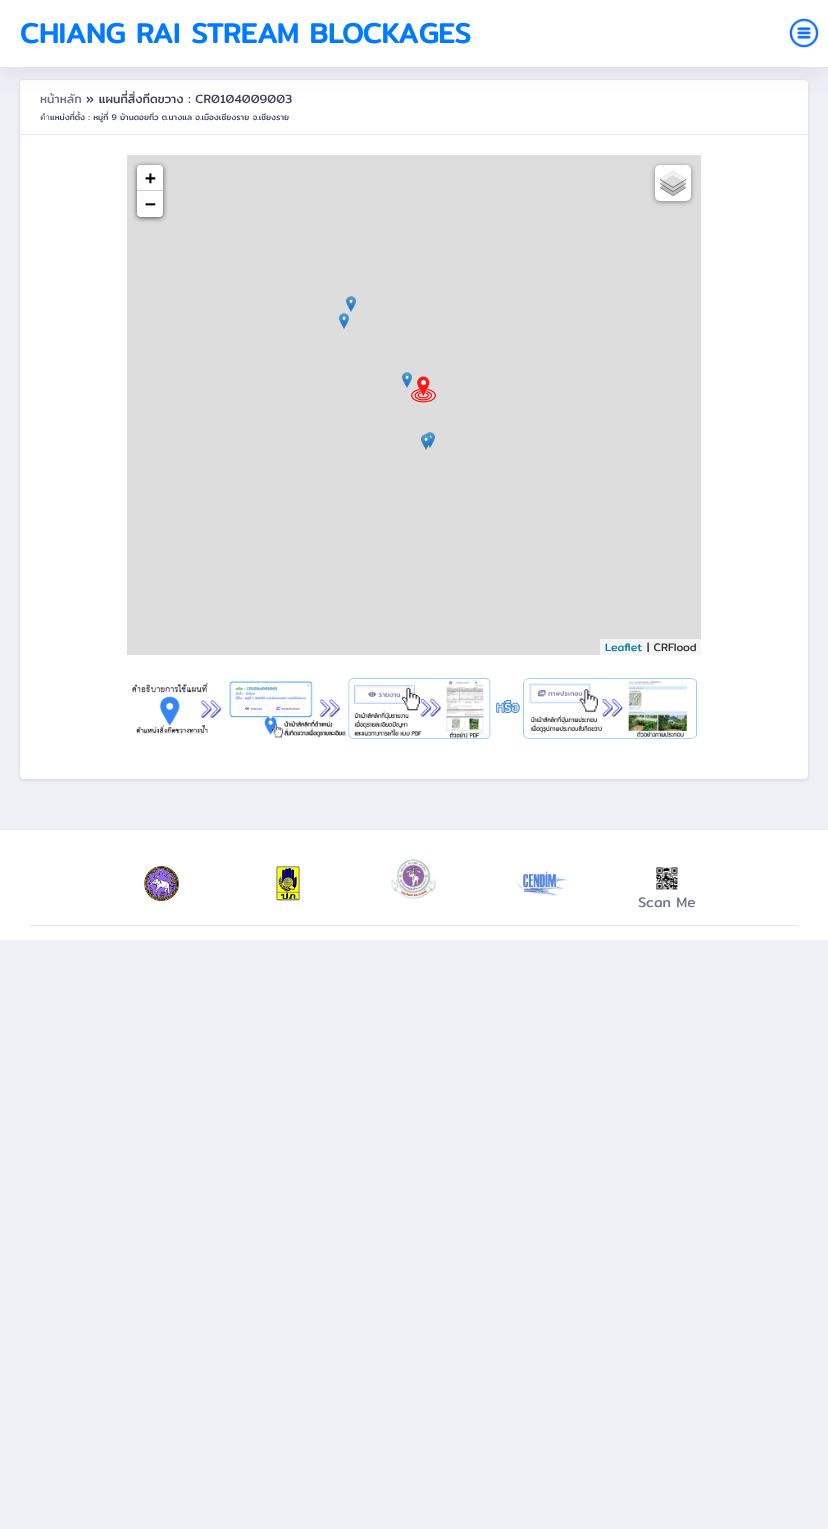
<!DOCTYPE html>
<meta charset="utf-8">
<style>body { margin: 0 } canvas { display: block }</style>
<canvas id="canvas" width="828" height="1529"></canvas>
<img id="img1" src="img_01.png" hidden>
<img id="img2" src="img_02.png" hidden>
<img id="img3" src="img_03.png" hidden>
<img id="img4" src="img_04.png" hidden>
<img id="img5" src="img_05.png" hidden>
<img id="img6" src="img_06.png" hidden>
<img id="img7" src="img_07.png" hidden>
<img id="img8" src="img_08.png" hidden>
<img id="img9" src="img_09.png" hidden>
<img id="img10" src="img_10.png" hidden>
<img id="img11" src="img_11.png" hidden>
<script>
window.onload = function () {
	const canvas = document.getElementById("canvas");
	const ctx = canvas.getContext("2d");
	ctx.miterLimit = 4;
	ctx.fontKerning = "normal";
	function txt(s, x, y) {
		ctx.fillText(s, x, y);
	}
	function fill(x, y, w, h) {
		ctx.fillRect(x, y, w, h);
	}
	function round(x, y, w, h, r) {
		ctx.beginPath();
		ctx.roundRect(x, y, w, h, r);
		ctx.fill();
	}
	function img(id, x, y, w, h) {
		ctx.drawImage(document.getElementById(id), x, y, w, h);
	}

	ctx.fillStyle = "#EFEFF6";
	fill(0, 0, 828, 1529);
	ctx.fillStyle = "rgba(154, 154, 204, 0.22)";
	ctx.filter = "blur(1px)";
	ctx.beginPath();
	ctx.roundRect(19, 80, 790, 701, 5);
	ctx.fill();
	ctx.filter = "none";
	ctx.fillStyle = "#FFFFFF";
	round(20, 80, 788, 699, 4);
	ctx.beginPath();
	ctx.roundRect(20, 80, 788, 55, [3, 3, 0, 0]);
	ctx.fill();
	ctx.fillStyle = "rgba(82, 63, 105, 0.13)";
	ctx.filter = "blur(14px)";
	ctx.beginPath();
	ctx.rect(0, 0, 828, 68);
	ctx.fill();
	ctx.filter = "none";
	ctx.fillStyle = "#FFFFFF";
	fill(0, 0, 828, 67);
	ctx.fillStyle = "#E6E6F2";
	fill(0, 67, 828, 1);
	img("img1", 789, 18, 30, 30);
	fill(20, 134, 788, 1);
	ctx.fillStyle = "#DDDDDD";
	fill(127, 155, 574, 500);
	ctx.fillStyle = "rgba(0, 0, 0, 0.65)";
	ctx.filter = "blur(2.5px)";
	ctx.beginPath();
	ctx.roundRect(137, 166, 26, 52, 4);
	ctx.fill();
	ctx.filter = "none";
	ctx.fillStyle = "#FFFFFF";
	ctx.beginPath();
	ctx.roundRect(137, 165, 26, 26, [4, 4, 0, 0]);
	ctx.fill();
	ctx.fillStyle = "#CCCCCC";
	fill(137, 190, 26, 1);
	ctx.fillStyle = "#FFFFFF";
	ctx.beginPath();
	ctx.roundRect(137, 191, 26, 26, [0, 0, 4, 4]);
	ctx.fill();
	ctx.fillStyle = "rgba(0, 0, 0, 0.4)";
	ctx.filter = "blur(2.5px)";
	ctx.beginPath();
	ctx.roundRect(655, 166, 36, 36, 5);
	ctx.fill();
	ctx.filter = "none";
	ctx.fillStyle = "#FFFFFF";
	round(655, 165, 36, 36, 5);
	img("img2", 660, 171, 26, 25);
	ctx.fillStyle = "#F5F5F5";
	fill(600, 639, 101, 16);
	img("img3", 346, 296, 10, 16);
	img("img3", 339, 313, 10, 16);
	img("img3", 402, 372, 10, 16);
	img("img4", 410, 376, 27, 27);
	img("img3", 425, 432, 10, 16);
	img("img5", 421, 434, 10, 16);
	img("img6", 132, 678, 565, 61);
	ctx.fillStyle = "#FFFFFF";
	fill(0, 830, 828, 110);
	ctx.fillStyle = "#EAEDEF";
	fill(0, 829, 828, 1);
	ctx.fillStyle = "#E6E6F2";
	fill(30, 925, 768, 1);
	img("img7", 144, 866, 35, 35);
	img("img8", 276, 866, 24, 35);
	img("img9", 391, 859, 45, 40);
	img("img10", 515, 871, 52, 25);
	img("img11", 656, 867, 23, 23);
	ctx.font = "bold 28px Mitr";
	ctx.fillStyle = "#007BFF";
	txt("CHIANG RAI STREAM BLOCKAGES", 20, 43);
	ctx.font = "12px Mitr";
	ctx.fillStyle = "#71748D";
	txt("หน้าหลัก", 40, 103);
	ctx.fillStyle = "#3D405C";
	txt("» แผนที่สิ่งกีดขวาง : CR0104009003", 86, 103);
	ctx.font = "8.25px Mitr";
	txt("ตำแหน่งที่ตั้ง : หมู่ที่ 9 บ้านดอยกิ่ว ต.นางแล อ.เมืองเชียงราย จ.เชียงราย", 40, 120);
	ctx.font = "bold 18px DejaVu Sans Mono";
	ctx.fillStyle = "#000000";
	txt("+", 145, 184);
	txt("−", 145, 210);
	ctx.font = "11px Mitr";
	ctx.fillStyle = "#0078A8";
	txt("Leaflet", 605, 651);
	ctx.fillStyle = "#333333";
	txt("| CRFlood", 647, 651);
	ctx.font = "14px Mitr";
	ctx.fillStyle = "#71748D";
	txt("Scan Me", 638, 907);
};
</script>
